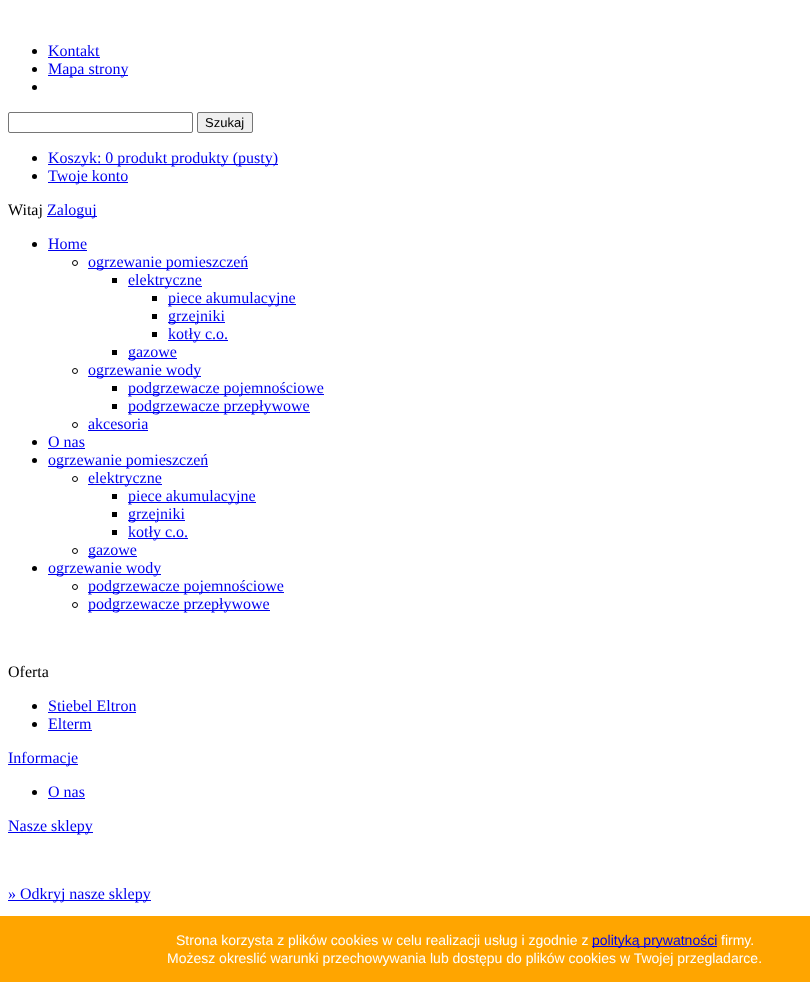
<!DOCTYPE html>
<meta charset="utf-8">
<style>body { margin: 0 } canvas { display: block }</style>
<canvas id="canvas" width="810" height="982"></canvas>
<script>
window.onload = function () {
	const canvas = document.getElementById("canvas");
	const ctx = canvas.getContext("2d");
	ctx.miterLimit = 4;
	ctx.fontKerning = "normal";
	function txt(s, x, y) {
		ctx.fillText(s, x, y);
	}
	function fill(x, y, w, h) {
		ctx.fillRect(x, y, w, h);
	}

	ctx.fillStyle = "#FFFFFF";
	fill(0, 0, 810, 982);
	ctx.fillStyle = "#000000";
	ctx.beginPath();
	ctx.arc(34.5, 51.5, 2.5, 0, Math.PI * 2);
	ctx.fill();
	ctx.fillStyle = "#0000EE";
	fill(48, 57, 52, 1);
	ctx.fillStyle = "#000000";
	ctx.beginPath();
	ctx.arc(34.5, 69.5, 2.5, 0, Math.PI * 2);
	ctx.fill();
	ctx.fillStyle = "#0000EE";
	fill(48, 75, 80, 1);
	ctx.fillStyle = "#000000";
	ctx.beginPath();
	ctx.arc(34.5, 87.5, 2.5, 0, Math.PI * 2);
	ctx.fill();
	ctx.beginPath();
	ctx.roundRect(8.5, 112.5, 184, 20, 1.5);
	ctx.strokeStyle = "#767676";
	ctx.stroke();
	ctx.fillStyle = "#EFEFEF";
	ctx.beginPath();
	ctx.roundRect(197.5, 112.5, 55, 20, 1.5);
	ctx.fill();
	ctx.stroke();
	ctx.fillStyle = "#000000";
	ctx.beginPath();
	ctx.arc(34.5, 158.5, 2.5, 0, Math.PI * 2);
	ctx.fill();
	ctx.fillStyle = "#0000EE";
	fill(48, 164, 119, 1);
	fill(167, 164, 111, 1);
	ctx.fillStyle = "#000000";
	ctx.beginPath();
	ctx.arc(34.5, 176.5, 2.5, 0, Math.PI * 2);
	ctx.fill();
	ctx.fillStyle = "#0000EE";
	fill(48, 182, 80, 1);
	fill(47, 216, 50, 1);
	ctx.fillStyle = "#000000";
	ctx.beginPath();
	ctx.arc(34.5, 244.5, 2.5, 0, Math.PI * 2);
	ctx.fill();
	ctx.fillStyle = "#0000EE";
	fill(48, 250, 39, 1);
	ctx.beginPath();
	ctx.arc(75, 263, 2.5, 0, Math.PI * 2);
	ctx.strokeStyle = "#000000";
	ctx.stroke();
	fill(88, 268, 160, 1);
	ctx.fillStyle = "#000000";
	fill(112, 278, 5, 5);
	ctx.fillStyle = "#0000EE";
	fill(128, 286, 74, 1);
	ctx.fillStyle = "#000000";
	fill(152, 296, 5, 5);
	ctx.fillStyle = "#0000EE";
	fill(168, 304, 128, 1);
	ctx.fillStyle = "#000000";
	fill(152, 314, 5, 5);
	ctx.fillStyle = "#0000EE";
	fill(168, 322, 57, 1);
	ctx.fillStyle = "#000000";
	fill(152, 332, 5, 5);
	ctx.fillStyle = "#0000EE";
	fill(168, 340, 60, 1);
	ctx.fillStyle = "#000000";
	fill(112, 350, 5, 5);
	ctx.fillStyle = "#0000EE";
	fill(128, 358, 49, 1);
	ctx.beginPath();
	ctx.arc(75, 371, 2.5, 0, Math.PI * 2);
	ctx.stroke();
	fill(88, 376, 113, 1);
	ctx.fillStyle = "#000000";
	fill(112, 386, 5, 5);
	ctx.fillStyle = "#0000EE";
	fill(128, 394, 196, 1);
	ctx.fillStyle = "#000000";
	fill(112, 404, 5, 5);
	ctx.fillStyle = "#0000EE";
	fill(128, 412, 182, 1);
	ctx.beginPath();
	ctx.arc(75, 425, 2.5, 0, Math.PI * 2);
	ctx.stroke();
	fill(88, 430, 60, 1);
	ctx.fillStyle = "#000000";
	ctx.beginPath();
	ctx.arc(34.5, 442.5, 2.5, 0, Math.PI * 2);
	ctx.fill();
	ctx.fillStyle = "#0000EE";
	fill(48, 448, 37, 1);
	ctx.fillStyle = "#000000";
	ctx.beginPath();
	ctx.arc(34.5, 460.5, 2.5, 0, Math.PI * 2);
	ctx.fill();
	ctx.fillStyle = "#0000EE";
	fill(48, 466, 160, 1);
	ctx.beginPath();
	ctx.arc(75, 479, 2.5, 0, Math.PI * 2);
	ctx.stroke();
	fill(88, 484, 74, 1);
	ctx.fillStyle = "#000000";
	fill(112, 494, 5, 5);
	ctx.fillStyle = "#0000EE";
	fill(128, 502, 128, 1);
	ctx.fillStyle = "#000000";
	fill(112, 512, 5, 5);
	ctx.fillStyle = "#0000EE";
	fill(128, 520, 57, 1);
	ctx.fillStyle = "#000000";
	fill(112, 530, 5, 5);
	ctx.fillStyle = "#0000EE";
	fill(128, 538, 60, 1);
	ctx.beginPath();
	ctx.arc(75, 551, 2.5, 0, Math.PI * 2);
	ctx.stroke();
	fill(88, 556, 49, 1);
	ctx.fillStyle = "#000000";
	ctx.beginPath();
	ctx.arc(34.5, 568.5, 2.5, 0, Math.PI * 2);
	ctx.fill();
	ctx.fillStyle = "#0000EE";
	fill(48, 574, 113, 1);
	ctx.beginPath();
	ctx.arc(75, 587, 2.5, 0, Math.PI * 2);
	ctx.stroke();
	fill(88, 592, 196, 1);
	ctx.beginPath();
	ctx.arc(75, 605, 2.5, 0, Math.PI * 2);
	ctx.stroke();
	fill(88, 610, 182, 1);
	ctx.fillStyle = "#000000";
	ctx.beginPath();
	ctx.arc(34.5, 706.5, 2.5, 0, Math.PI * 2);
	ctx.fill();
	ctx.fillStyle = "#0000EE";
	fill(48, 712, 88, 1);
	ctx.fillStyle = "#000000";
	ctx.beginPath();
	ctx.arc(34.5, 724.5, 2.5, 0, Math.PI * 2);
	ctx.fill();
	ctx.fillStyle = "#0000EE";
	fill(48, 730, 44, 1);
	fill(8, 764, 70, 1);
	ctx.fillStyle = "#000000";
	ctx.beginPath();
	ctx.arc(34.5, 792.5, 2.5, 0, Math.PI * 2);
	ctx.fill();
	ctx.fillStyle = "#0000EE";
	fill(48, 798, 37, 1);
	fill(8, 832, 85, 1);
	fill(8, 900, 143, 1);
	ctx.fillStyle = "#FFA500";
	fill(0, 916, 810, 66);
	ctx.fillStyle = "#0000EE";
	fill(592, 946, 125, 1);
	ctx.font = "16px Liberation Serif";
	txt("Kontakt", 48, 56);
	txt("Mapa strony", 48, 74);
	ctx.font = "13px Liberation Sans";
	ctx.fillStyle = "#000000";
	txt("Szukaj", 205, 127);
	ctx.font = "16px Liberation Serif";
	ctx.fillStyle = "#0000EE";
	txt("Koszyk: 0 produkt", 48, 163);
	txt("produkty (pusty)", 171, 163);
	txt("Twoje konto", 48, 181);
	ctx.fillStyle = "#000000";
	txt("Witaj", 8, 215);
	ctx.fillStyle = "#0000EE";
	txt("Zaloguj", 47, 215);
	txt("Home", 48, 249);
	txt("ogrzewanie pomieszczeń", 88, 267);
	txt("elektryczne", 128, 285);
	txt("piece akumulacyjne", 168, 303);
	txt("grzejniki", 168, 321);
	txt("kotły c.o.", 168, 339);
	txt("gazowe", 128, 357);
	txt("ogrzewanie wody", 88, 375);
	txt("podgrzewacze pojemnościowe", 128, 393);
	txt("podgrzewacze przepływowe", 128, 411);
	txt("akcesoria", 88, 429);
	txt("O nas", 48, 447);
	txt("ogrzewanie pomieszczeń", 48, 465);
	txt("elektryczne", 88, 483);
	txt("piece akumulacyjne", 128, 501);
	txt("grzejniki", 128, 519);
	txt("kotły c.o.", 128, 537);
	txt("gazowe", 88, 555);
	txt("ogrzewanie wody", 48, 573);
	txt("podgrzewacze pojemnościowe", 88, 591);
	txt("podgrzewacze przepływowe", 88, 609);
	ctx.fillStyle = "#000000";
	txt("Oferta", 8, 677);
	ctx.fillStyle = "#0000EE";
	txt("Stiebel Eltron", 48, 711);
	txt("Elterm", 48, 729);
	txt("Informacje", 8, 763);
	txt("O nas", 48, 797);
	txt("Nasze sklepy", 8, 831);
	txt("» Odkryj nasze sklepy", 8, 899);
	ctx.font = "14px Liberation Sans";
	ctx.fillStyle = "#FFFFFF";
	txt("Strona korzysta z plików cookies w celu realizacji usług i zgodnie z", 176, 945);
	ctx.fillStyle = "#0000EE";
	txt("polityką prywatności", 592, 945);
	ctx.fillStyle = "#FFFFFF";
	txt("firmy.", 721, 945);
	txt("Możesz okreslić warunki przechowywania lub dostępu do plików cookies w Twojej przegladarce.", 167, 963);
};
</script>
